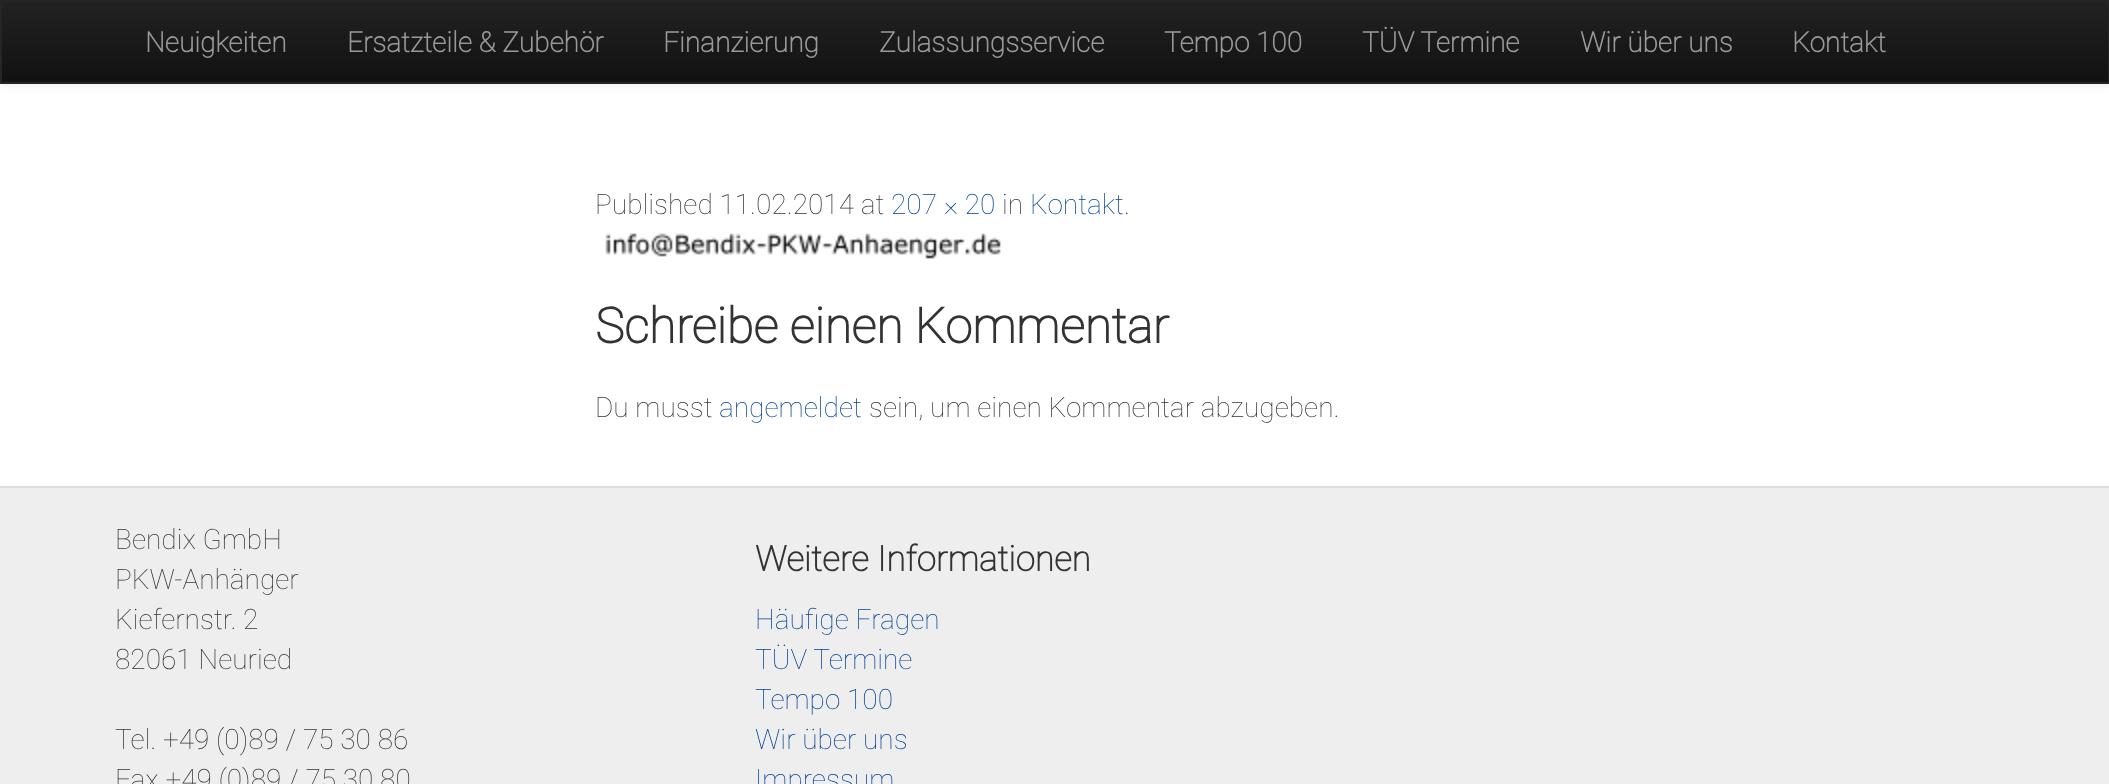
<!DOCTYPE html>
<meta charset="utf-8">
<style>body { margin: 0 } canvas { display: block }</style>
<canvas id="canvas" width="2109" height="784"></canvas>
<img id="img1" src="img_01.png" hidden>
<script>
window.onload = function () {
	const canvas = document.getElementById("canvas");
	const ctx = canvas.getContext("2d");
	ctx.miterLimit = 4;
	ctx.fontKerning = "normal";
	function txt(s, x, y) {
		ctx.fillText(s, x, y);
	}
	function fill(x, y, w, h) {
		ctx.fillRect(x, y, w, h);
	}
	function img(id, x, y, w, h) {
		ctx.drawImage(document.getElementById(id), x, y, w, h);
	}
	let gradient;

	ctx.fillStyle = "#FFFFFF";
	fill(0, 0, 2109, 784);
	ctx.fillStyle = "rgba(0, 0, 0, 0.07)";
	ctx.filter = "blur(4px)";
	ctx.beginPath();
	ctx.rect(0, 2, 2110, 84);
	ctx.fill();
	ctx.filter = "none";
	gradient = ctx.createLinearGradient(1055, 2, 1055, 82);
	gradient.addColorStop(0, "#222222");
	gradient.addColorStop(1, "#111111");
	ctx.fillStyle = gradient;
	fill(2, 2, 2106, 80);
	ctx.strokeStyle = "#252525";
	ctx.lineWidth = 2;
	ctx.strokeRect(1, 1, 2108, 82);
	img("img1", 605, 233, 396, 26);
	ctx.fillStyle = "#EEEEEE";
	fill(0, 488, 2109, 296);
	ctx.fillStyle = "#DDDDDD";
	fill(0, 486, 2109, 2);
	ctx.font = "bold 28px Roboto";
	ctx.fillStyle = "#999999";
	txt("Neuigkeiten", 145, 52);
	txt("Ersatzteile & Zubehör", 347, 52);
	txt("Finanzierung", 663, 52);
	txt("Zulassungsservice", 879, 52);
	txt("Tempo 100", 1164, 52);
	txt("TÜV Termine", 1362, 52);
	txt("Wir über uns", 1580, 52);
	txt("Kontakt", 1792, 52);
	ctx.font = "100 28px Roboto";
	ctx.fillStyle = "#333333";
	txt("Published 11.02.2014 at", 595, 214);
	ctx.fillStyle = "#004193";
	txt("207 × 20", 891, 214);
	ctx.fillStyle = "#333333";
	txt("in", 1002, 214);
	ctx.fillStyle = "#004193";
	txt("Kontakt", 1030, 214);
	ctx.fillStyle = "#333333";
	txt(".", 1124, 214);
	ctx.font = "bold 49px Roboto";
	txt("Schreibe einen Kommentar", 595, 343);
	ctx.font = "100 28px Roboto";
	txt("Du musst", 595, 417);
	ctx.fillStyle = "#004193";
	txt("angemeldet", 719, 417);
	ctx.fillStyle = "#333333";
	txt("sein, um einen Kommentar abzugeben.", 869, 417);
	txt("Bendix GmbH", 115, 549);
	txt("PKW-Anhänger", 115, 589);
	txt("Kiefernstr. 2", 115, 629);
	txt("82061 Neuried", 115, 669);
	txt("Tel. +49 (0)89 / 75 30 86", 115, 749);
	txt("Fax +49 (0)89 / 75 30 80", 115, 789);
	ctx.font = "bold 35px Roboto";
	txt("Weitere Informationen", 755, 571);
	ctx.font = "100 28px Roboto";
	ctx.fillStyle = "#004193";
	txt("Häufige Fragen", 755, 629);
	txt("TÜV Termine", 755, 669);
	txt("Tempo 100", 755, 709);
	txt("Wir über uns", 755, 749);
	txt("Impressum", 755, 789);
};
</script>
